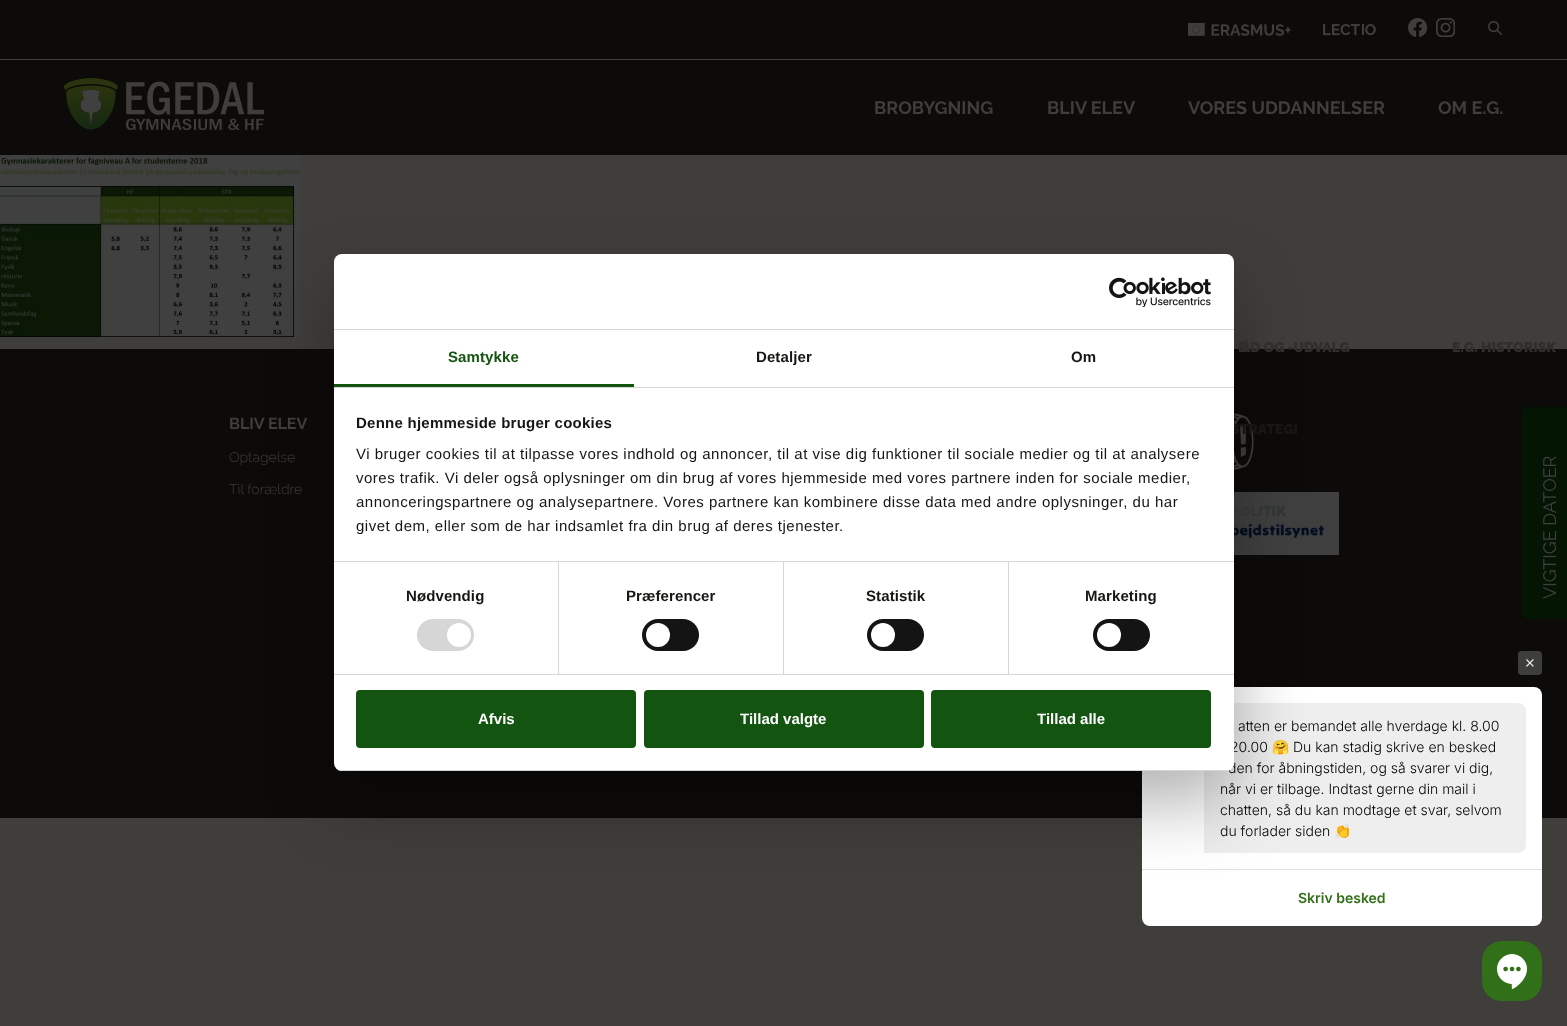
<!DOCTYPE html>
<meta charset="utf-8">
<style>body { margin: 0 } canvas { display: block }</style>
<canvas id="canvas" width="1567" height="1026"></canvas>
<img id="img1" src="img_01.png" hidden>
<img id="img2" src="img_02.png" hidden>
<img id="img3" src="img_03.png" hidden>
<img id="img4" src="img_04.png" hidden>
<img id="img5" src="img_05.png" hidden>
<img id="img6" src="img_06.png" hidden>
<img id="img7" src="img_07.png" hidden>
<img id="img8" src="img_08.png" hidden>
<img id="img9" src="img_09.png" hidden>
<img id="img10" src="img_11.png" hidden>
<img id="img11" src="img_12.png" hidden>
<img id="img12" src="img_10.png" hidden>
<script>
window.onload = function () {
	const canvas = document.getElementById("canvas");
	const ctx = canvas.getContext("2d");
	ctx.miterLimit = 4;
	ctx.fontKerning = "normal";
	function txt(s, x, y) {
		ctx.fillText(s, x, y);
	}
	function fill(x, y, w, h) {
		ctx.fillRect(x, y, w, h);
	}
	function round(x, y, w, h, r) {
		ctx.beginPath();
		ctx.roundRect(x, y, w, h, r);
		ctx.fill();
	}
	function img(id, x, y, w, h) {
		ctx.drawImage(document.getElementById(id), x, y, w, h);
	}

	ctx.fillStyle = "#403E3A";
	fill(0, 0, 1567, 1026);
	img("img1", 0, 155, 300, 182);
	ctx.fillStyle = "#0D0B09";
	fill(0, 0, 1567, 155);
	ctx.fillStyle = "#403E3A";
	fill(0, 59, 1567, 1);
	img("img2", 1188, 23, 103, 13);
	img("img3", 1323, 24, 53, 12);
	img("img4", 1408, 18, 20, 19);
	img("img5", 1436, 18, 19, 19);
	img("img6", 1488, 21, 15, 15);
	img("img7", 64, 78, 200, 52);
	ctx.fillStyle = "#0D0B09";
	fill(0, 349, 1567, 469);
	img("img8", 1234, 413, 20, 57);
	img("img9", 1234, 492, 105, 63);
	ctx.fillStyle = "#FFFFFF";
	round(1142, 687, 400, 239, 8);
	ctx.fillStyle = "#EEEEEE";
	ctx.beginPath();
	ctx.roundRect(1204, 703, 322, 150, [8, 8, 8, 0]);
	ctx.fill();
	ctx.fillStyle = "#E0E0E0";
	fill(1142, 869, 400, 1);
	ctx.fillStyle = "rgba(0, 0, 0, 0.3)";
	ctx.filter = "blur(34px)";
	ctx.beginPath();
	ctx.roundRect(334, 286, 900, 517, 8);
	ctx.fill();
	ctx.filter = "none";
	ctx.fillStyle = "#071C06";
	ctx.beginPath();
	ctx.roundRect(1522, 407, 45, 212, [5, 0, 0, 5]);
	ctx.fill();
	ctx.fillStyle = "rgba(0, 0, 0, 0.25)";
	fill(1522, 407, 45, 212);
	ctx.fillStyle = "#3E3E3D";
	round(1518, 651, 24, 24, 4);
	img("img10", 1526, 659, 8, 8);
	ctx.fillStyle = "#317018";
	round(1482, 941, 60, 60, 20);
	img("img11", 1497, 954, 30, 35);
	ctx.font = "bold 18px Raleway";
	ctx.fillStyle = "#403E3A";
	txt("BROBYGNING", 874, 114);
	txt("BLIV ELEV", 1047, 114);
	ctx.font = "900 14px Raleway";
	ctx.fillStyle = "#302E2A";
	txt("R", 1238, 352);
	ctx.font = "bold 18px Raleway";
	ctx.fillStyle = "#403E3A";
	txt("VORES UDDANNELSER", 1188, 114);
	txt("OM E.G.", 1438, 114);
	ctx.font = "900 14px Raleway";
	ctx.fillStyle = "#302E2A";
	txt("ÅD OG -UDVALG", 1241, 352);
	txt("E.G. HISTORISK", 1452, 352);
	ctx.fillStyle = "#171613";
	txt("STRATEGI", 1231, 434);
	ctx.fillStyle = "#323632";
	txt("POLITIK", 1231, 516);
	ctx.font = "bold 16px Raleway";
	ctx.fillStyle = "#403E3A";
	txt("BLIV ELEV", 229, 429);
	ctx.font = "300 14px Raleway";
	txt("Optagelse", 229, 462);
	txt("Til forældre", 229, 494);
	ctx.font = "18px Raleway";
	ctx.fillStyle = "#404040";
	ctx.save();
	ctx.translate(1556, 599);
	ctx.rotate(-90 * Math.PI / 180);
	ctx.fillText("VIGTIGE DATOER", 0, 0);
	ctx.restore();
	ctx.font = "300 14px Inter";
	ctx.fillStyle = "#000000";
	txt("atten er bemandet alle hverdage kl. 8.00", 1238, 731);
	txt("20.00", 1230, 752);
	ctx.font = "14px Noto Color Emoji";
	txt("🤗", 1272, 752);
	ctx.font = "300 14px Inter";
	txt("Du kan stadig skrive en besked", 1293, 752);
	txt("den for åbningstiden, og så svarer vi dig,", 1228, 773);
	ctx.fillStyle = "#FFFFFF";
	round(334, 254, 900, 517, 8);
	ctx.fillStyle = "#135410";
	ctx.beginPath();
	ctx.roundRect(932, 691, 278, 56, 3);
	ctx.fill();
	ctx.strokeStyle = "#135410";
	ctx.lineWidth = 2;
	ctx.stroke();
	ctx.font = "bold 15px Liberation Sans";
	ctx.fillStyle = "#FFFFFF";
	txt("Tillad alle", 1037, 724);
	ctx.fillStyle = "#135410";
	ctx.beginPath();
	ctx.roundRect(645, 691, 278, 56, 3);
	ctx.fill();
	ctx.stroke();
	ctx.fillStyle = "#FFFFFF";
	txt("Tillad valgte", 740, 724);
	ctx.fillStyle = "#135410";
	ctx.beginPath();
	ctx.roundRect(357, 691, 278, 56, 3);
	ctx.fill();
	ctx.stroke();
	ctx.fillStyle = "#FFFFFF";
	txt("Afvis", 478, 724);
	ctx.save();
	ctx.beginPath();
	ctx.roundRect(334, 254, 900, 517, 8);
	ctx.clip();
	ctx.fillStyle = "#D6D6D6";
	fill(334, 770, 900, 1);
	ctx.restore();
	ctx.fillStyle = "#141414";
	round(1093, 619, 57, 32, 16);
	ctx.fillStyle = "#FFFFFF";
	ctx.beginPath();
	ctx.arc(1109, 635, 12, 0, Math.PI * 2);
	ctx.fill();
	ctx.fillStyle = "#141414";
	round(867, 619, 57, 32, 16);
	ctx.fillStyle = "#FFFFFF";
	ctx.beginPath();
	ctx.arc(883, 635, 12, 0, Math.PI * 2);
	ctx.fill();
	ctx.fillStyle = "#141414";
	round(642, 619, 57, 32, 16);
	ctx.fillStyle = "#FFFFFF";
	ctx.beginPath();
	ctx.arc(658, 635, 12, 0, Math.PI * 2);
	ctx.fill();
	ctx.fillStyle = "#D6D6D6";
	round(417, 619, 57, 32, 16);
	ctx.fillStyle = "#FFFFFF";
	ctx.beginPath();
	ctx.arc(459, 635, 12, 0, Math.PI * 2);
	ctx.fill();
	ctx.letterSpacing = "0.5px";
	ctx.font = "15px Liberation Sans";
	ctx.fillStyle = "#171613";
	txt("givet dem, eller som de har indsamlet fra din brug af deres tjenester.", 356, 531);
	txt("annonceringspartnere og analysepartnere. Vores partnere kan kombinere disse data med andre oplysninger, du har", 356, 507);
	txt("vores trafik. Vi deler også oplysninger om din brug af vores hjemmeside med vores partnere inden for sociale medier,", 356, 483);
	txt("Vi bruger cookies til at tilpasse vores indhold og annoncer, til at vise dig funktioner til sociale medier og til at analysere", 356, 459);
	ctx.letterSpacing = "0.25px";
	ctx.font = "bold 15px Liberation Sans";
	txt("Denne hjemmeside bruger cookies", 356, 428);
	ctx.fillStyle = "#D6D6D6";
	fill(334, 561, 900, 1);
	ctx.letterSpacing = "0.1px";
	ctx.fillStyle = "#171613";
	txt("Om", 1071, 362);
	txt("Detaljer", 756, 362);
	ctx.fillStyle = "#135410";
	txt("Samtykke", 448, 362);
	fill(334, 384, 300, 3);
	ctx.fillStyle = "#D6D6D6";
	fill(334, 387, 900, 1);
	ctx.fillStyle = "#171613";
	txt("Marketing", 1085, 601);
	txt("Statistik", 866, 601);
	ctx.fillStyle = "#D6D6D6";
	fill(1008, 562, 1, 112);
	ctx.fillStyle = "#171613";
	txt("Præferencer", 626, 601);
	ctx.fillStyle = "#D6D6D6";
	fill(783, 562, 1, 112);
	ctx.fillStyle = "#171613";
	txt("Nødvendig", 406, 601);
	ctx.fillStyle = "#D6D6D6";
	fill(558, 562, 1, 112);
	fill(334, 674, 900, 1);
	img("img12", 1109, 277, 102, 30);
	fill(334, 329, 900, 1);
	ctx.letterSpacing = "0px";
	ctx.font = "300 14px Inter";
	ctx.fillStyle = "#000000";
	txt("når vi er tilbage. Indtast gerne din mail i", 1220, 794);
	txt("chatten, så du kan modtage et svar, selvom", 1220, 815);
	txt("du forlader siden", 1220, 836);
	ctx.font = "14px Noto Color Emoji";
	txt("👏", 1334, 836);
	ctx.font = "600 14px Inter";
	ctx.fillStyle = "#317018";
	txt("Skriv besked", 1298, 903);
};
</script>
